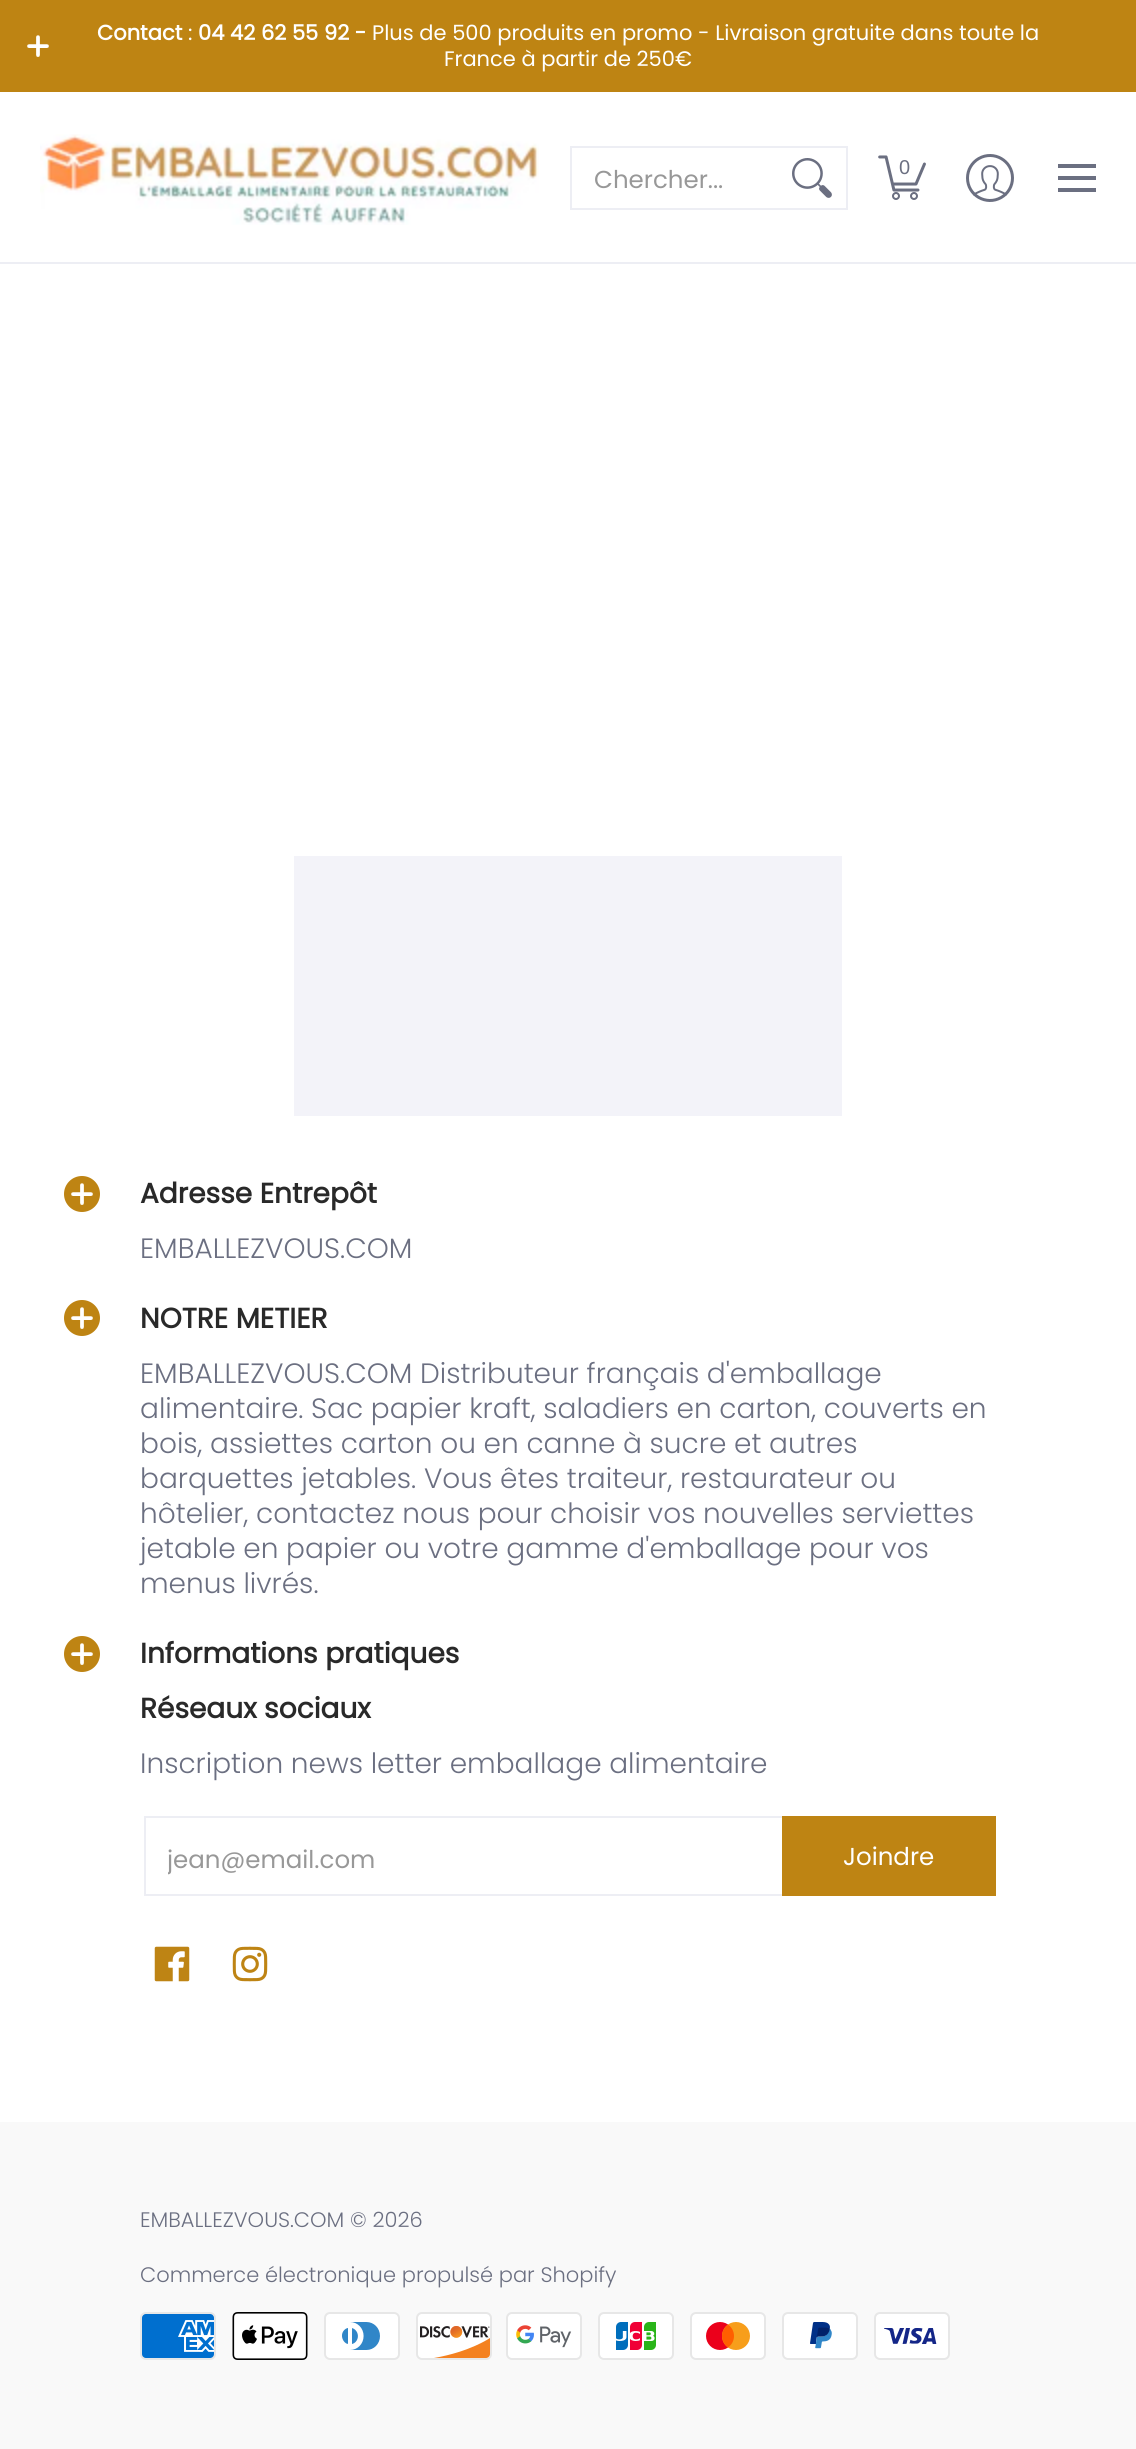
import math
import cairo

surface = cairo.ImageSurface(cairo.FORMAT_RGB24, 1136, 2449)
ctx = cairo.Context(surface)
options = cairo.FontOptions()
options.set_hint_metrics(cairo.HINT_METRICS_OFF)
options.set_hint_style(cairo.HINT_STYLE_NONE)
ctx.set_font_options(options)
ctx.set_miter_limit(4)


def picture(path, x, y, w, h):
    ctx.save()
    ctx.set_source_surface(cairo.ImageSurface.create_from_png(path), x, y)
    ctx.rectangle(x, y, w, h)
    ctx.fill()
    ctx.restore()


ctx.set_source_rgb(1, 1, 1)
ctx.paint()
ctx.set_source_rgb(0.745, 0.518, 0.078)
ctx.rectangle(0, 0, 1136, 92)
ctx.fill()
picture("img1.png", 27, 35, 22, 22)
ctx.select_font_face("Poppins", cairo.FONT_SLANT_NORMAL, cairo.FONT_WEIGHT_BOLD)
ctx.set_font_size(21)
ctx.set_source_rgb(1, 1, 1)
ctx.move_to(97, 40)
ctx.show_text("Contact")
ctx.select_font_face("Poppins")
ctx.move_to(188, 40)
ctx.show_text(":")
ctx.select_font_face("Poppins", cairo.FONT_SLANT_NORMAL, cairo.FONT_WEIGHT_BOLD)
ctx.move_to(198, 40)
ctx.show_text("04 42 62 55 92 -")
ctx.select_font_face("Poppins")
ctx.move_to(372, 40)
ctx.show_text("Plus de 500 produits en promo - Livraison gratuite dans toute la")
ctx.move_to(444, 66)
ctx.show_text("France à partir de 250€")
ctx.set_source_rgb(0.929, 0.933, 0.957)
ctx.rectangle(0, 262, 1136, 2)
ctx.fill()
picture("img2.png", 40, 134, 499, 91)
ctx.rectangle(571, 147, 276, 62)
ctx.stroke()
ctx.set_font_size(24.5)
ctx.set_source_rgb(0.596, 0.596, 0.596)
ctx.move_to(594, 188)
ctx.show_text("Chercher...")
picture("img3.png", 792, 158, 40, 40)
picture("img4.png", 878, 155, 48, 45)
ctx.select_font_face("Liberation Sans")
ctx.set_font_size(20)
ctx.set_source_rgb(0.42, 0.435, 0.506)
ctx.move_to(899, 174)
ctx.show_text("0")
picture("img5.png", 966, 154, 48, 48)
ctx.rectangle(1058, 164, 38, 4)
ctx.fill()
ctx.rectangle(1058, 188, 38, 4)
ctx.fill()
ctx.rectangle(1058, 176, 38, 4)
ctx.fill()
ctx.set_source_rgb(0.953, 0.953, 0.973)
ctx.rectangle(294, 856, 548, 260)
ctx.fill()
ctx.set_source_rgb(0.745, 0.518, 0.078)
ctx.arc(82, 1194, 18, 0, 2 * math.pi)
ctx.fill()
picture("img1.png", 71, 1183, 22, 22)
ctx.select_font_face("Poppins", cairo.FONT_SLANT_NORMAL, cairo.FONT_WEIGHT_BOLD)
ctx.set_font_size(28)
ctx.set_source_rgb(0.161, 0.161, 0.161)
ctx.move_to(140, 1203)
ctx.show_text("Adresse Entrepôt")
ctx.select_font_face("Poppins Light")
ctx.set_source_rgb(0.42, 0.435, 0.506)
ctx.move_to(140, 1258)
ctx.show_text("EMBALLEZVOUS.COM")
ctx.set_source_rgb(0.745, 0.518, 0.078)
ctx.new_path()
ctx.arc(82, 1318, 18, 0, 2 * math.pi)
ctx.fill()
picture("img1.png", 71, 1307, 22, 22)
ctx.select_font_face("Poppins", cairo.FONT_SLANT_NORMAL, cairo.FONT_WEIGHT_BOLD)
ctx.set_source_rgb(0.161, 0.161, 0.161)
ctx.move_to(140, 1328)
ctx.show_text("NOTRE METIER")
ctx.select_font_face("Poppins Light")
ctx.set_source_rgb(0.42, 0.435, 0.506)
ctx.move_to(140, 1383)
ctx.show_text("EMBALLEZVOUS.COM Distributeur français d'emballage")
ctx.move_to(140, 1418)
ctx.show_text("alimentaire. Sac papier kraft, saladiers en carton, couverts en")
ctx.move_to(140, 1453)
ctx.show_text("bois, assiettes carton ou en canne à sucre et autres")
ctx.move_to(140, 1488)
ctx.show_text("barquettes jetables. Vous êtes traiteur, restaurateur ou")
ctx.move_to(140, 1523)
ctx.show_text("hôtelier, contactez nous pour choisir vos nouvelles serviettes")
ctx.move_to(140, 1558)
ctx.show_text("jetable en papier ou votre gamme d'emballage pour vos")
ctx.move_to(140, 1593)
ctx.show_text("menus livrés.")
ctx.set_source_rgb(0.745, 0.518, 0.078)
ctx.new_path()
ctx.arc(82, 1654, 18, 0, 2 * math.pi)
ctx.fill()
picture("img1.png", 71, 1643, 22, 22)
ctx.select_font_face("Poppins", cairo.FONT_SLANT_NORMAL, cairo.FONT_WEIGHT_BOLD)
ctx.set_source_rgb(0.161, 0.161, 0.161)
ctx.move_to(140, 1663)
ctx.show_text("Informations pratiques")
ctx.move_to(140, 1718)
ctx.show_text("Réseaux sociaux")
ctx.select_font_face("Poppins Light")
ctx.set_source_rgb(0.42, 0.435, 0.506)
ctx.move_to(140, 1773)
ctx.show_text("Inscription news letter emballage alimentaire")
ctx.rectangle(145, 1817, 640, 78)
ctx.set_source_rgb(0.929, 0.933, 0.957)
ctx.stroke()
ctx.save()
ctx.rectangle(168, 1842, 596, 36)
ctx.clip()
ctx.select_font_face("Poppins")
ctx.set_font_size(24.5)
ctx.set_source_rgb(0.596, 0.596, 0.596)
ctx.move_to(167, 1868)
ctx.show_text("jean@email.com")
ctx.restore()
ctx.set_source_rgb(0.745, 0.518, 0.078)
ctx.rectangle(782, 1816, 214, 80)
ctx.fill()
ctx.select_font_face("Poppins")
ctx.set_font_size(24.5)
ctx.set_source_rgb(1, 1, 1)
ctx.move_to(843, 1865)
ctx.show_text("Joindre")
picture("img6.png", 154, 1946, 36, 36)
picture("img7.png", 232, 1946, 36, 36)
ctx.set_source_rgb(0.973, 0.973, 0.973)
ctx.rectangle(0, 2122, 1136, 327)
ctx.fill()
ctx.select_font_face("Poppins Light")
ctx.set_font_size(21)
ctx.set_source_rgb(0.42, 0.435, 0.506)
ctx.move_to(140, 2227)
ctx.show_text("EMBALLEZVOUS.COM © 2026")
ctx.move_to(140, 2282)
ctx.show_text("Commerce électronique propulsé par Shopify")
picture("img8.png", 140, 2312, 76, 48)
picture("img9.png", 232, 2312, 76, 48)
picture("img10.png", 324, 2312, 76, 48)
picture("img11.png", 416, 2312, 76, 48)
picture("img12.png", 506, 2312, 76, 48)
picture("img13.png", 598, 2312, 76, 48)
picture("img14.png", 690, 2312, 76, 48)
picture("img15.png", 782, 2312, 76, 48)
picture("img16.png", 874, 2312, 76, 48)
surface.write_to_png("page.png")
